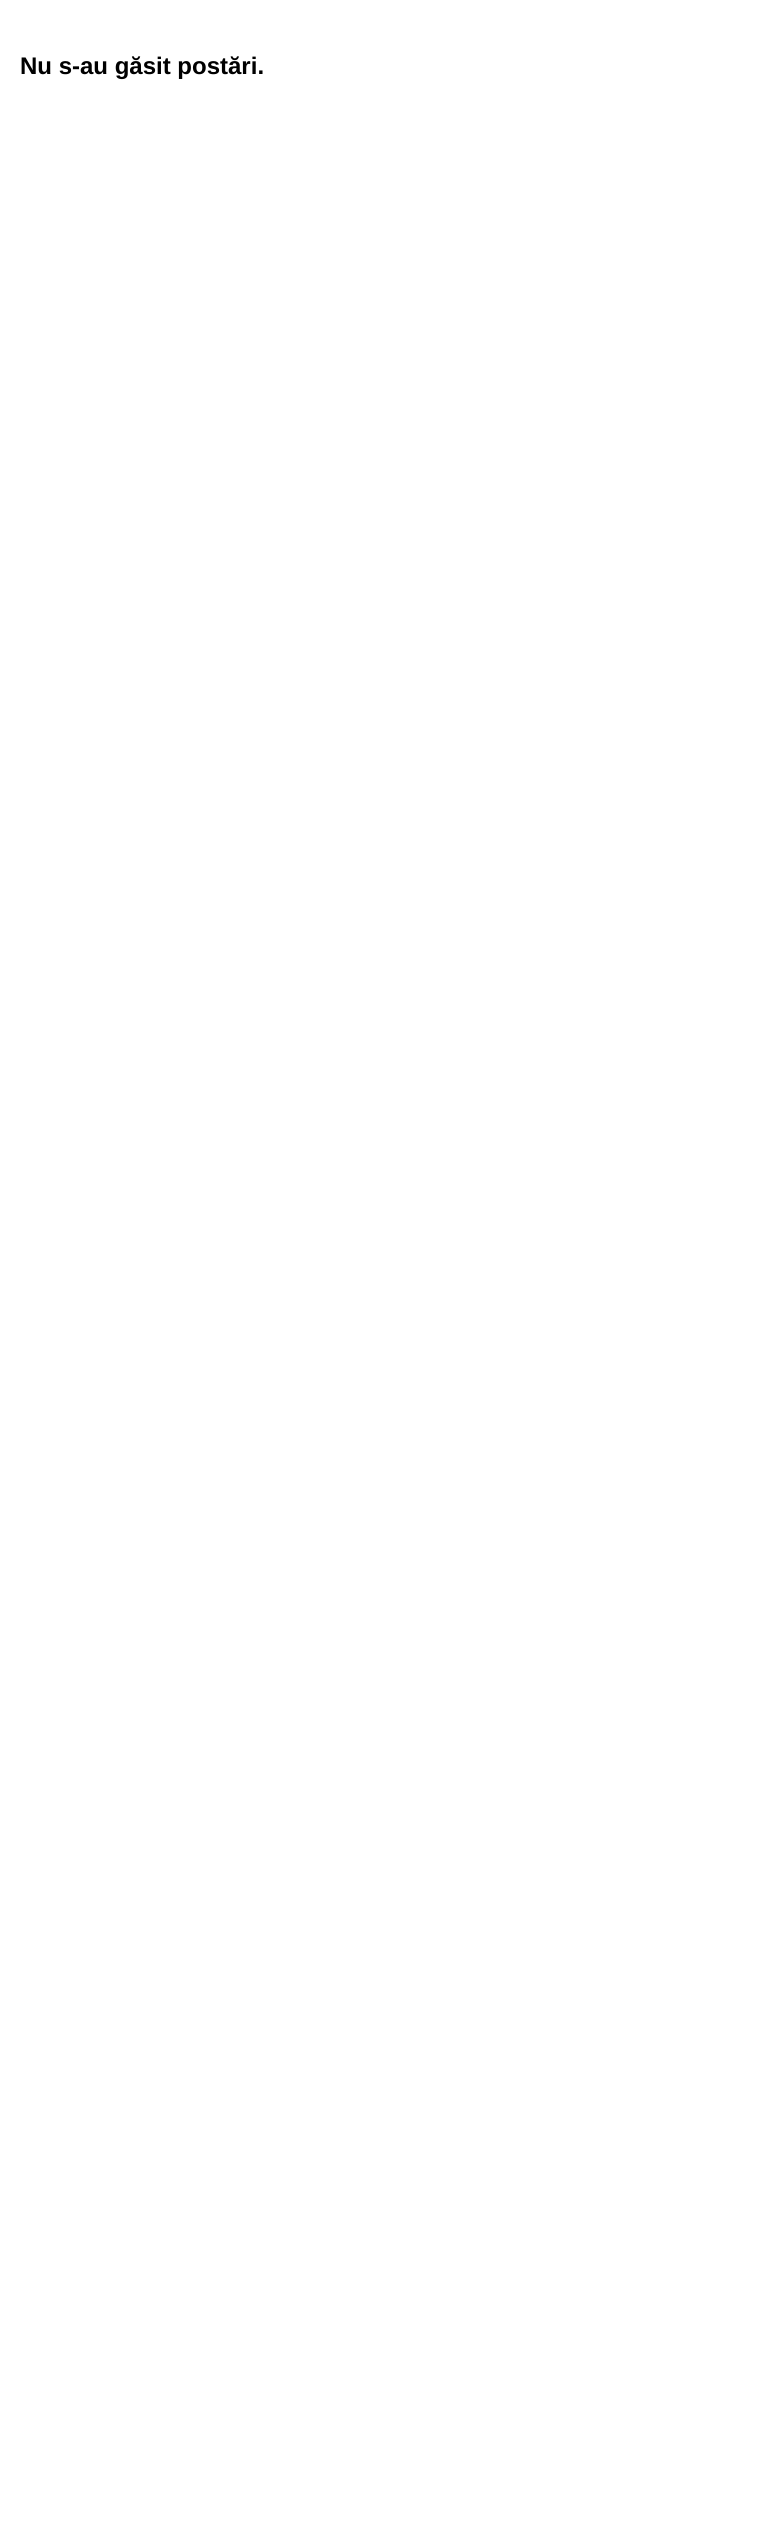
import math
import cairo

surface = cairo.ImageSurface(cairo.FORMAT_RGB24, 757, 2533)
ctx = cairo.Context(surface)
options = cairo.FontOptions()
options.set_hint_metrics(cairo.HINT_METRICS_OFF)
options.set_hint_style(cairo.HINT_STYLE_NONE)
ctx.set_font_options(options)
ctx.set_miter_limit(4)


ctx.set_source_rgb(1, 1, 1)
ctx.paint()
ctx.select_font_face("Liberation Sans", cairo.FONT_SLANT_NORMAL, cairo.FONT_WEIGHT_BOLD)
ctx.set_font_size(24)
ctx.set_source_rgb(0, 0, 0)
ctx.move_to(20, 74)
ctx.show_text("Nu s-au găsit postări.")
surface.write_to_png("page.png")
